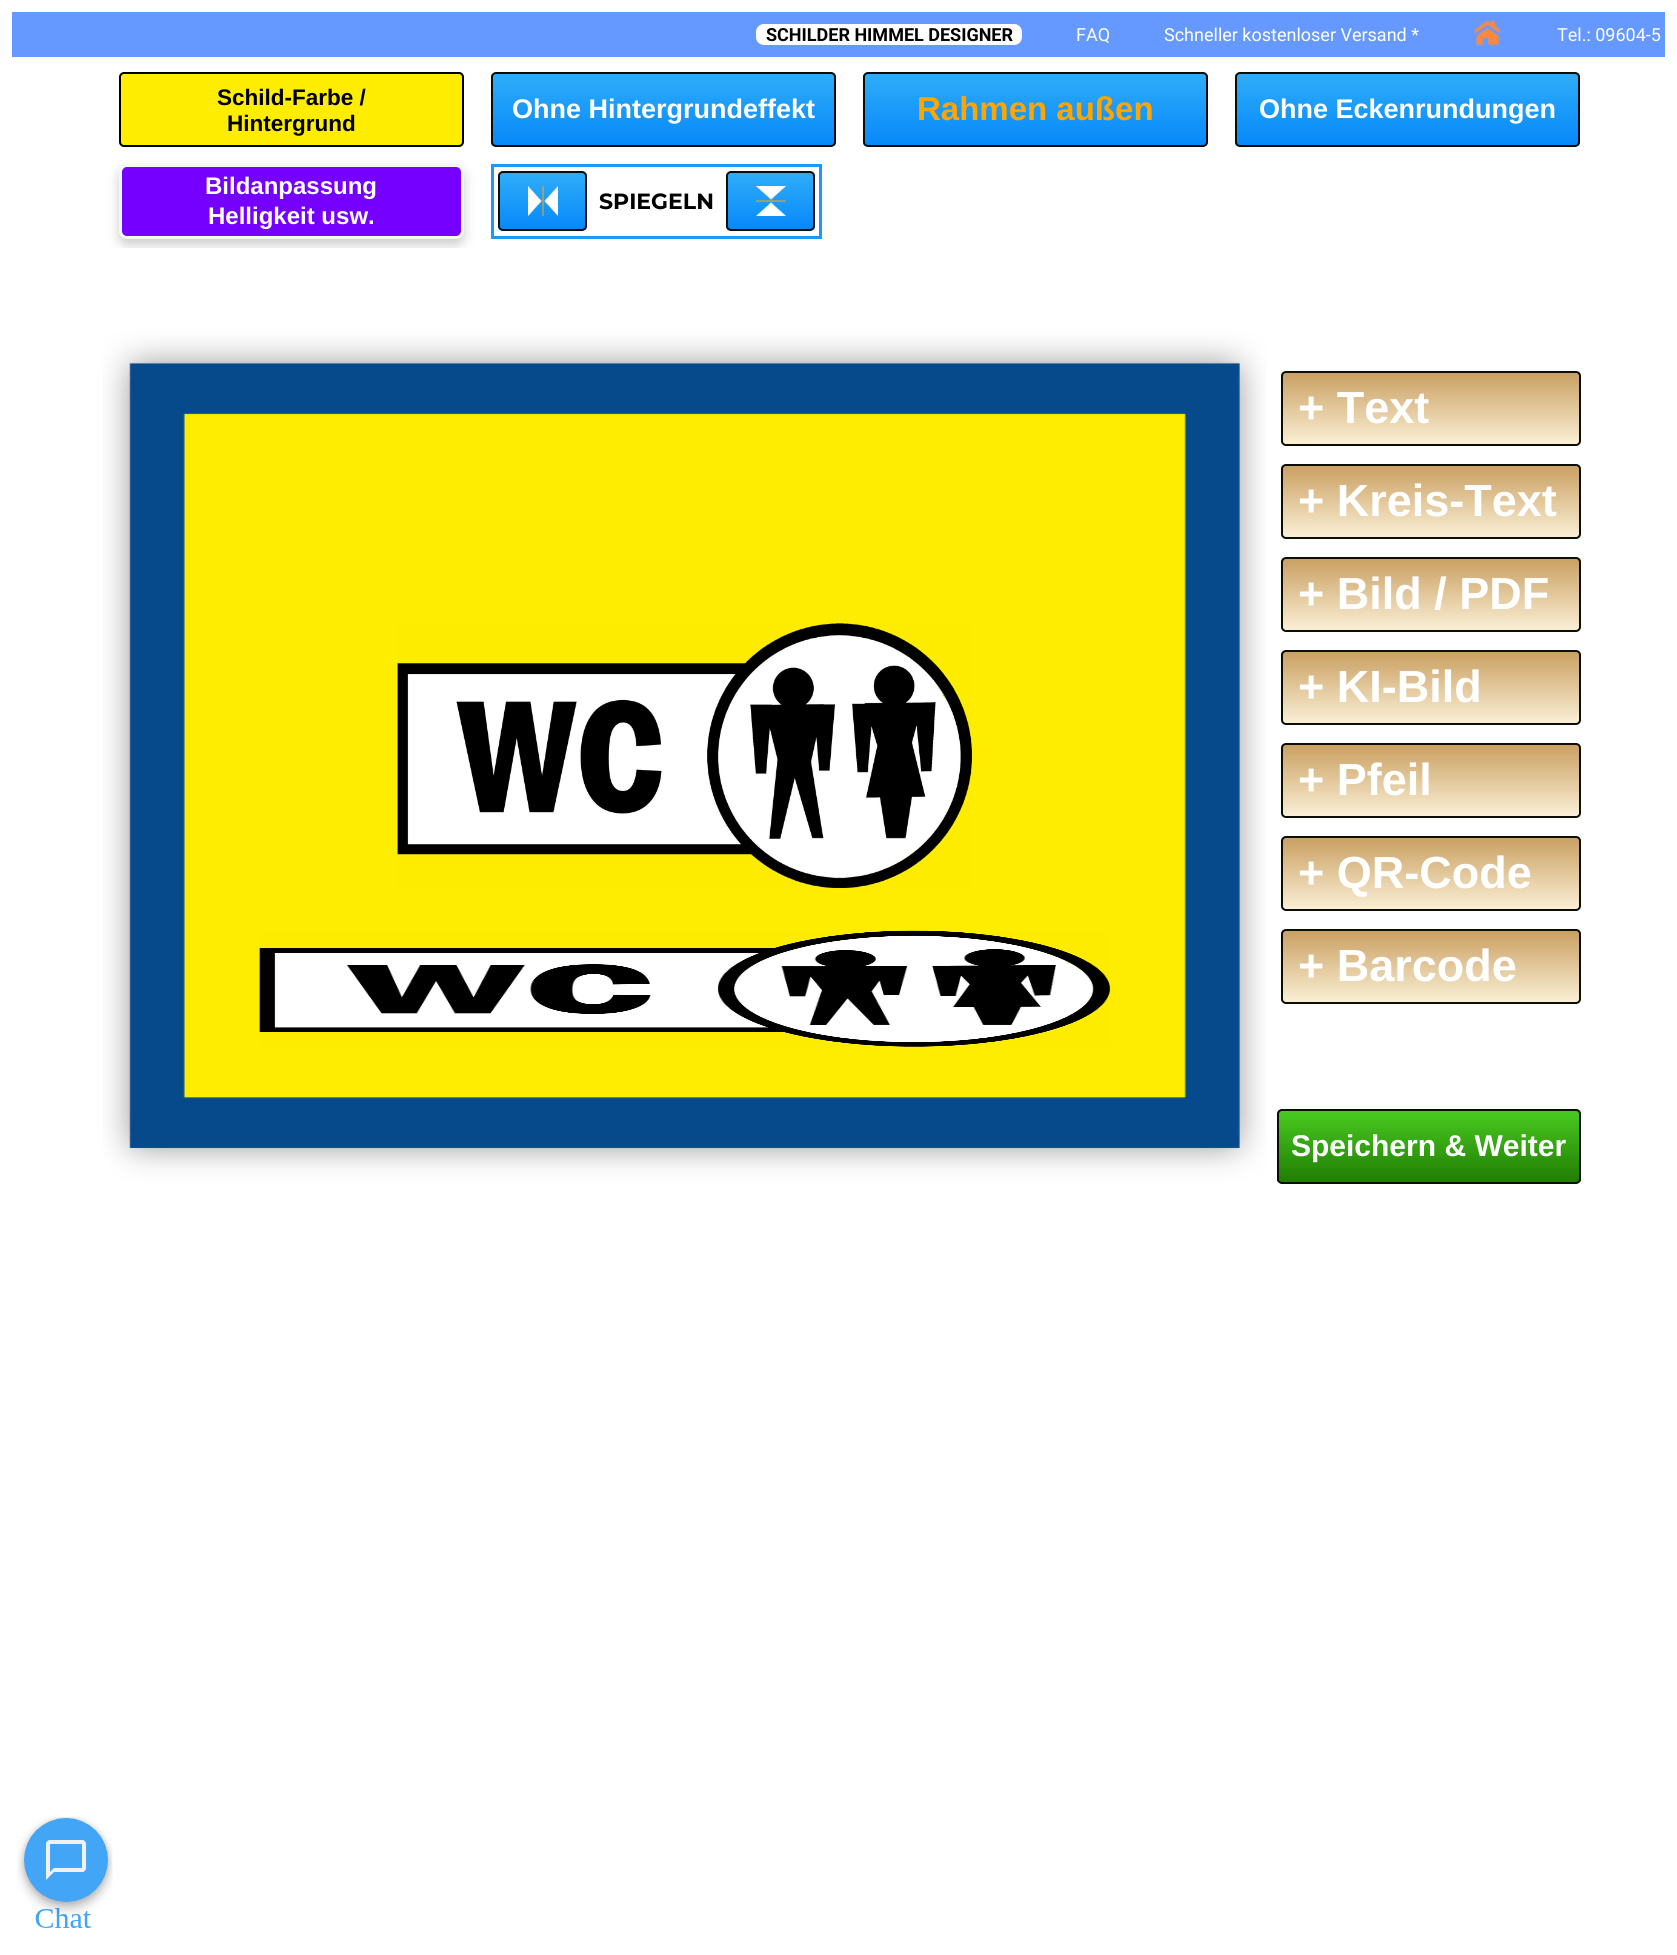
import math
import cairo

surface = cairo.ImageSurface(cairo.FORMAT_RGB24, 1677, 1955)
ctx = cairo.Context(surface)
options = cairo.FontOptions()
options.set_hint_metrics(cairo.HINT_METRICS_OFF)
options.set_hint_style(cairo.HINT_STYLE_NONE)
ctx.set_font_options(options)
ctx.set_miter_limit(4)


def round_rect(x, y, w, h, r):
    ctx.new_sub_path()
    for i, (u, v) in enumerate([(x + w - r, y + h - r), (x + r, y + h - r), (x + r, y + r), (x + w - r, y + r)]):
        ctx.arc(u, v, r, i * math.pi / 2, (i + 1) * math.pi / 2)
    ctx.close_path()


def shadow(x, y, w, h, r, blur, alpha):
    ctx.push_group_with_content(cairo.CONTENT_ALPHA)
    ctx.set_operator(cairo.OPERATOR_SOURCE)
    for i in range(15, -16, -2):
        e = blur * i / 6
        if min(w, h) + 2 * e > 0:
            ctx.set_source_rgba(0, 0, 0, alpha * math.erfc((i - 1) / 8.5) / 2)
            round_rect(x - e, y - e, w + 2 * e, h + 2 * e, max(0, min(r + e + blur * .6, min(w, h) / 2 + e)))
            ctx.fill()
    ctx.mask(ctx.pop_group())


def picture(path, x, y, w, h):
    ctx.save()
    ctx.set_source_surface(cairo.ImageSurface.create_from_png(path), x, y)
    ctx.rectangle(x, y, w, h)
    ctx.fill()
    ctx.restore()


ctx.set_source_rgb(1, 1, 1)
ctx.paint()
ctx.set_source_rgb(0.4, 0.6, 1)
ctx.rectangle(12, 12, 1653, 45)
ctx.fill()
ctx.set_source_rgb(1, 1, 1)
round_rect(756, 24, 266, 21, 8)
ctx.fill()
ctx.select_font_face("Roboto", cairo.FONT_SLANT_NORMAL, cairo.FONT_WEIGHT_BOLD)
ctx.set_font_size(18)
ctx.set_source_rgb(0, 0, 0)
ctx.move_to(766, 41)
ctx.show_text("SCHILDER HIMMEL DESIGNER")
ctx.select_font_face("Roboto")
ctx.set_source_rgb(1, 1, 1)
ctx.move_to(1076, 41)
ctx.show_text("FAQ")
ctx.move_to(1164, 41)
ctx.show_text("Schneller kostenloser Versand *")
picture("img1.png", 1474, 19, 27, 27)
ctx.move_to(1557, 41)
ctx.show_text("Tel.: 09604-5")
ctx.set_source_rgb(1, 0.929, 0)
round_rect(120, 73, 343, 73, 4)
ctx.fill_preserve()
ctx.set_source_rgb(0, 0, 0)
ctx.stroke()
ctx.select_font_face("Liberation Sans", cairo.FONT_SLANT_NORMAL, cairo.FONT_WEIGHT_BOLD)
ctx.set_font_size(22.5)
ctx.move_to(217, 105)
ctx.show_text("Schild-Farbe /")
ctx.move_to(227, 131)
ctx.show_text("Hintergrund")
ctx.save()
round_rect(491, 72, 345, 75, 5)
ctx.clip()
gradient = cairo.LinearGradient(663, 73, 663, 146)
gradient.add_color_stop_rgba(0.05, 0.176, 0.671, 0.976, 1)
gradient.add_color_stop_rgba(1, 0.024, 0.533, 0.98, 1)
ctx.set_source(gradient)
ctx.rectangle(491, 74, 345, 72)
ctx.fill()
ctx.restore()
round_rect(492, 73, 343, 73, 4)
ctx.set_source_rgb(0.043, 0.055, 0.027)
ctx.stroke()
ctx.set_font_size(27)
ctx.set_source_rgb(1, 1, 1)
ctx.move_to(512, 118)
ctx.show_text("Ohne Hintergrundeffekt")
ctx.save()
round_rect(863, 72, 345, 75, 5)
ctx.clip()
gradient = cairo.LinearGradient(1035, 73, 1035, 146)
gradient.add_color_stop_rgba(0.05, 0.176, 0.671, 0.976, 1)
gradient.add_color_stop_rgba(1, 0.024, 0.533, 0.98, 1)
ctx.set_source(gradient)
ctx.rectangle(863, 74, 345, 72)
ctx.fill()
ctx.restore()
round_rect(864, 73, 343, 73, 4)
ctx.set_source_rgb(0.043, 0.055, 0.027)
ctx.stroke()
ctx.set_font_size(33)
ctx.set_source_rgb(1, 0.647, 0)
ctx.move_to(917, 120)
ctx.show_text("Rahmen außen")
ctx.save()
round_rect(1235, 72, 345, 75, 5)
ctx.clip()
gradient = cairo.LinearGradient(1407, 73, 1407, 146)
gradient.add_color_stop_rgba(0.05, 0.176, 0.671, 0.976, 1)
gradient.add_color_stop_rgba(1, 0.024, 0.533, 0.98, 1)
ctx.set_source(gradient)
ctx.rectangle(1235, 74, 345, 72)
ctx.fill()
ctx.restore()
round_rect(1236, 73, 343, 73, 4)
ctx.set_source_rgb(0.043, 0.055, 0.027)
ctx.stroke()
ctx.set_font_size(27)
ctx.set_source_rgb(1, 1, 1)
ctx.move_to(1259, 118)
ctx.show_text("Ohne Eckenrundungen")
ctx.set_source_rgb(0, 0, 0)
shadow(119, 170, 345, 75, 8, 6, 0.2)
ctx.set_source_rgb(0.463, 0, 1)
round_rect(120.5, 165.5, 342, 72, 6.5)
ctx.fill_preserve()
ctx.set_source_rgb(0.945, 0.98, 0.933)
ctx.set_line_width(3)
ctx.stroke()
ctx.set_font_size(24)
ctx.set_source_rgb(1, 1, 1)
ctx.move_to(205, 194)
ctx.show_text("Bildanpassung")
ctx.move_to(208, 224)
ctx.show_text("Helligkeit usw.")
ctx.rectangle(492.5, 165.5, 328, 72)
ctx.set_source_rgb(0.098, 0.6, 0.976)
ctx.stroke()
ctx.save()
round_rect(498, 171, 89, 60, 5)
ctx.clip()
gradient = cairo.LinearGradient(542, 173, 542, 230)
gradient.add_color_stop_rgba(0.05, 0.176, 0.671, 0.976, 1)
gradient.add_color_stop_rgba(1, 0.024, 0.533, 0.98, 1)
ctx.set_source(gradient)
ctx.rectangle(498, 173, 89, 57)
ctx.fill()
ctx.restore()
round_rect(499, 172, 87, 58, 4)
ctx.set_source_rgb(0.043, 0.055, 0.027)
ctx.set_line_width(2)
ctx.stroke()
picture("img2.png", 528, 186, 30, 30)
ctx.select_font_face("Montserrat", cairo.FONT_SLANT_NORMAL, cairo.FONT_WEIGHT_BOLD)
ctx.set_font_size(22)
ctx.set_source_rgb(0, 0, 0)
ctx.move_to(599, 209)
ctx.show_text("SPIEGELN")
ctx.save()
round_rect(726, 171, 89, 60, 5)
ctx.clip()
gradient = cairo.LinearGradient(770, 173, 770, 230)
gradient.add_color_stop_rgba(0.05, 0.176, 0.671, 0.976, 1)
gradient.add_color_stop_rgba(1, 0.024, 0.533, 0.98, 1)
ctx.set_source(gradient)
ctx.rectangle(726, 173, 89, 57)
ctx.fill()
ctx.restore()
round_rect(727, 172, 87, 58, 4)
ctx.set_source_rgb(0.043, 0.055, 0.027)
ctx.stroke()
picture("img3.png", 756, 186, 30, 30)
ctx.set_source_rgb(1, 1, 1)
ctx.rectangle(115, 248, 353, 7)
ctx.fill()
picture("img4.png", 103, 249, 1163, 1013)
ctx.save()
round_rect(1281, 371, 300, 75, 5)
ctx.clip()
gradient = cairo.LinearGradient(1431, 372, 1431, 444)
gradient.add_color_stop_rgba(0.05, 0.8, 0.639, 0.4, 1)
gradient.add_color_stop_rgba(1, 0.98, 0.937, 0.835, 1)
ctx.set_source(gradient)
ctx.rectangle(1281, 372, 300, 72)
ctx.fill()
ctx.restore()
round_rect(1282, 372, 298, 73, 4)
ctx.set_source_rgb(0.043, 0.055, 0.027)
ctx.stroke()
ctx.select_font_face("Liberation Sans", cairo.FONT_SLANT_NORMAL, cairo.FONT_WEIGHT_BOLD)
ctx.set_font_size(45)
ctx.set_source_rgb(1, 1, 1)
ctx.move_to(1298, 423)
ctx.show_text("+ Text")
ctx.save()
round_rect(1281, 464, 300, 75, 5)
ctx.clip()
gradient = cairo.LinearGradient(1431, 465, 1431, 537)
gradient.add_color_stop_rgba(0.05, 0.8, 0.639, 0.4, 1)
gradient.add_color_stop_rgba(1, 0.98, 0.937, 0.835, 1)
ctx.set_source(gradient)
ctx.rectangle(1281, 465, 300, 72)
ctx.fill()
ctx.restore()
round_rect(1282, 465, 298, 73, 4)
ctx.set_source_rgb(0.043, 0.055, 0.027)
ctx.stroke()
ctx.set_source_rgb(1, 1, 1)
ctx.move_to(1298, 516)
ctx.show_text("+ Kreis-Text")
ctx.save()
round_rect(1281, 557, 300, 75, 5)
ctx.clip()
gradient = cairo.LinearGradient(1431, 558, 1431, 630)
gradient.add_color_stop_rgba(0.05, 0.8, 0.639, 0.4, 1)
gradient.add_color_stop_rgba(1, 0.98, 0.937, 0.835, 1)
ctx.set_source(gradient)
ctx.rectangle(1281, 558, 300, 72)
ctx.fill()
ctx.restore()
round_rect(1282, 558, 298, 73, 4)
ctx.set_source_rgb(0.043, 0.055, 0.027)
ctx.stroke()
ctx.set_source_rgb(1, 1, 1)
ctx.move_to(1298, 609)
ctx.show_text("+ Bild / PDF")
ctx.save()
round_rect(1281, 650, 300, 75, 5)
ctx.clip()
gradient = cairo.LinearGradient(1431, 651, 1431, 723)
gradient.add_color_stop_rgba(0.05, 0.8, 0.639, 0.4, 1)
gradient.add_color_stop_rgba(1, 0.98, 0.937, 0.835, 1)
ctx.set_source(gradient)
ctx.rectangle(1281, 651, 300, 72)
ctx.fill()
ctx.restore()
round_rect(1282, 651, 298, 73, 4)
ctx.set_source_rgb(0.043, 0.055, 0.027)
ctx.stroke()
ctx.set_source_rgb(1, 1, 1)
ctx.move_to(1298, 702)
ctx.show_text("+ KI-Bild")
ctx.save()
round_rect(1281, 743, 300, 75, 5)
ctx.clip()
gradient = cairo.LinearGradient(1431, 744, 1431, 816)
gradient.add_color_stop_rgba(0.05, 0.8, 0.639, 0.4, 1)
gradient.add_color_stop_rgba(1, 0.98, 0.937, 0.835, 1)
ctx.set_source(gradient)
ctx.rectangle(1281, 744, 300, 72)
ctx.fill()
ctx.restore()
round_rect(1282, 744, 298, 73, 4)
ctx.set_source_rgb(0.043, 0.055, 0.027)
ctx.stroke()
ctx.set_source_rgb(1, 1, 1)
ctx.move_to(1298, 795)
ctx.show_text("+ Pfeil")
ctx.save()
round_rect(1281, 836, 300, 75, 5)
ctx.clip()
gradient = cairo.LinearGradient(1431, 837, 1431, 909)
gradient.add_color_stop_rgba(0.05, 0.8, 0.639, 0.4, 1)
gradient.add_color_stop_rgba(1, 0.98, 0.937, 0.835, 1)
ctx.set_source(gradient)
ctx.rectangle(1281, 837, 300, 72)
ctx.fill()
ctx.restore()
round_rect(1282, 837, 298, 73, 4)
ctx.set_source_rgb(0.043, 0.055, 0.027)
ctx.stroke()
ctx.set_source_rgb(1, 1, 1)
ctx.move_to(1298, 888)
ctx.show_text("+ QR-Code")
ctx.save()
round_rect(1281, 929, 300, 75, 5)
ctx.clip()
gradient = cairo.LinearGradient(1431, 930, 1431, 1002)
gradient.add_color_stop_rgba(0.05, 0.8, 0.639, 0.4, 1)
gradient.add_color_stop_rgba(1, 0.98, 0.937, 0.835, 1)
ctx.set_source(gradient)
ctx.rectangle(1281, 930, 300, 72)
ctx.fill()
ctx.restore()
round_rect(1282, 930, 298, 73, 4)
ctx.set_source_rgb(0.043, 0.055, 0.027)
ctx.stroke()
ctx.set_source_rgb(1, 1, 1)
ctx.move_to(1298, 981)
ctx.show_text("+ Barcode")
ctx.save()
round_rect(1277, 1109, 304, 75, 5)
ctx.clip()
gradient = cairo.LinearGradient(1429, 1110, 1429, 1182)
gradient.add_color_stop_rgba(0.05, 0.278, 0.78, 0.122, 1)
gradient.add_color_stop_rgba(1, 0.129, 0.49, 0.016, 1)
ctx.set_source(gradient)
ctx.rectangle(1277, 1110, 304, 72)
ctx.fill()
ctx.restore()
round_rect(1278, 1110, 302, 73, 4)
ctx.set_source_rgb(0.043, 0.055, 0.027)
ctx.stroke()
ctx.set_font_size(30)
ctx.set_source_rgb(1, 1, 1)
ctx.move_to(1291, 1156)
ctx.show_text("Speichern & Weiter")
picture("img5.png", 17, 1817, 96, 111)
surface.write_to_png("page.png")
